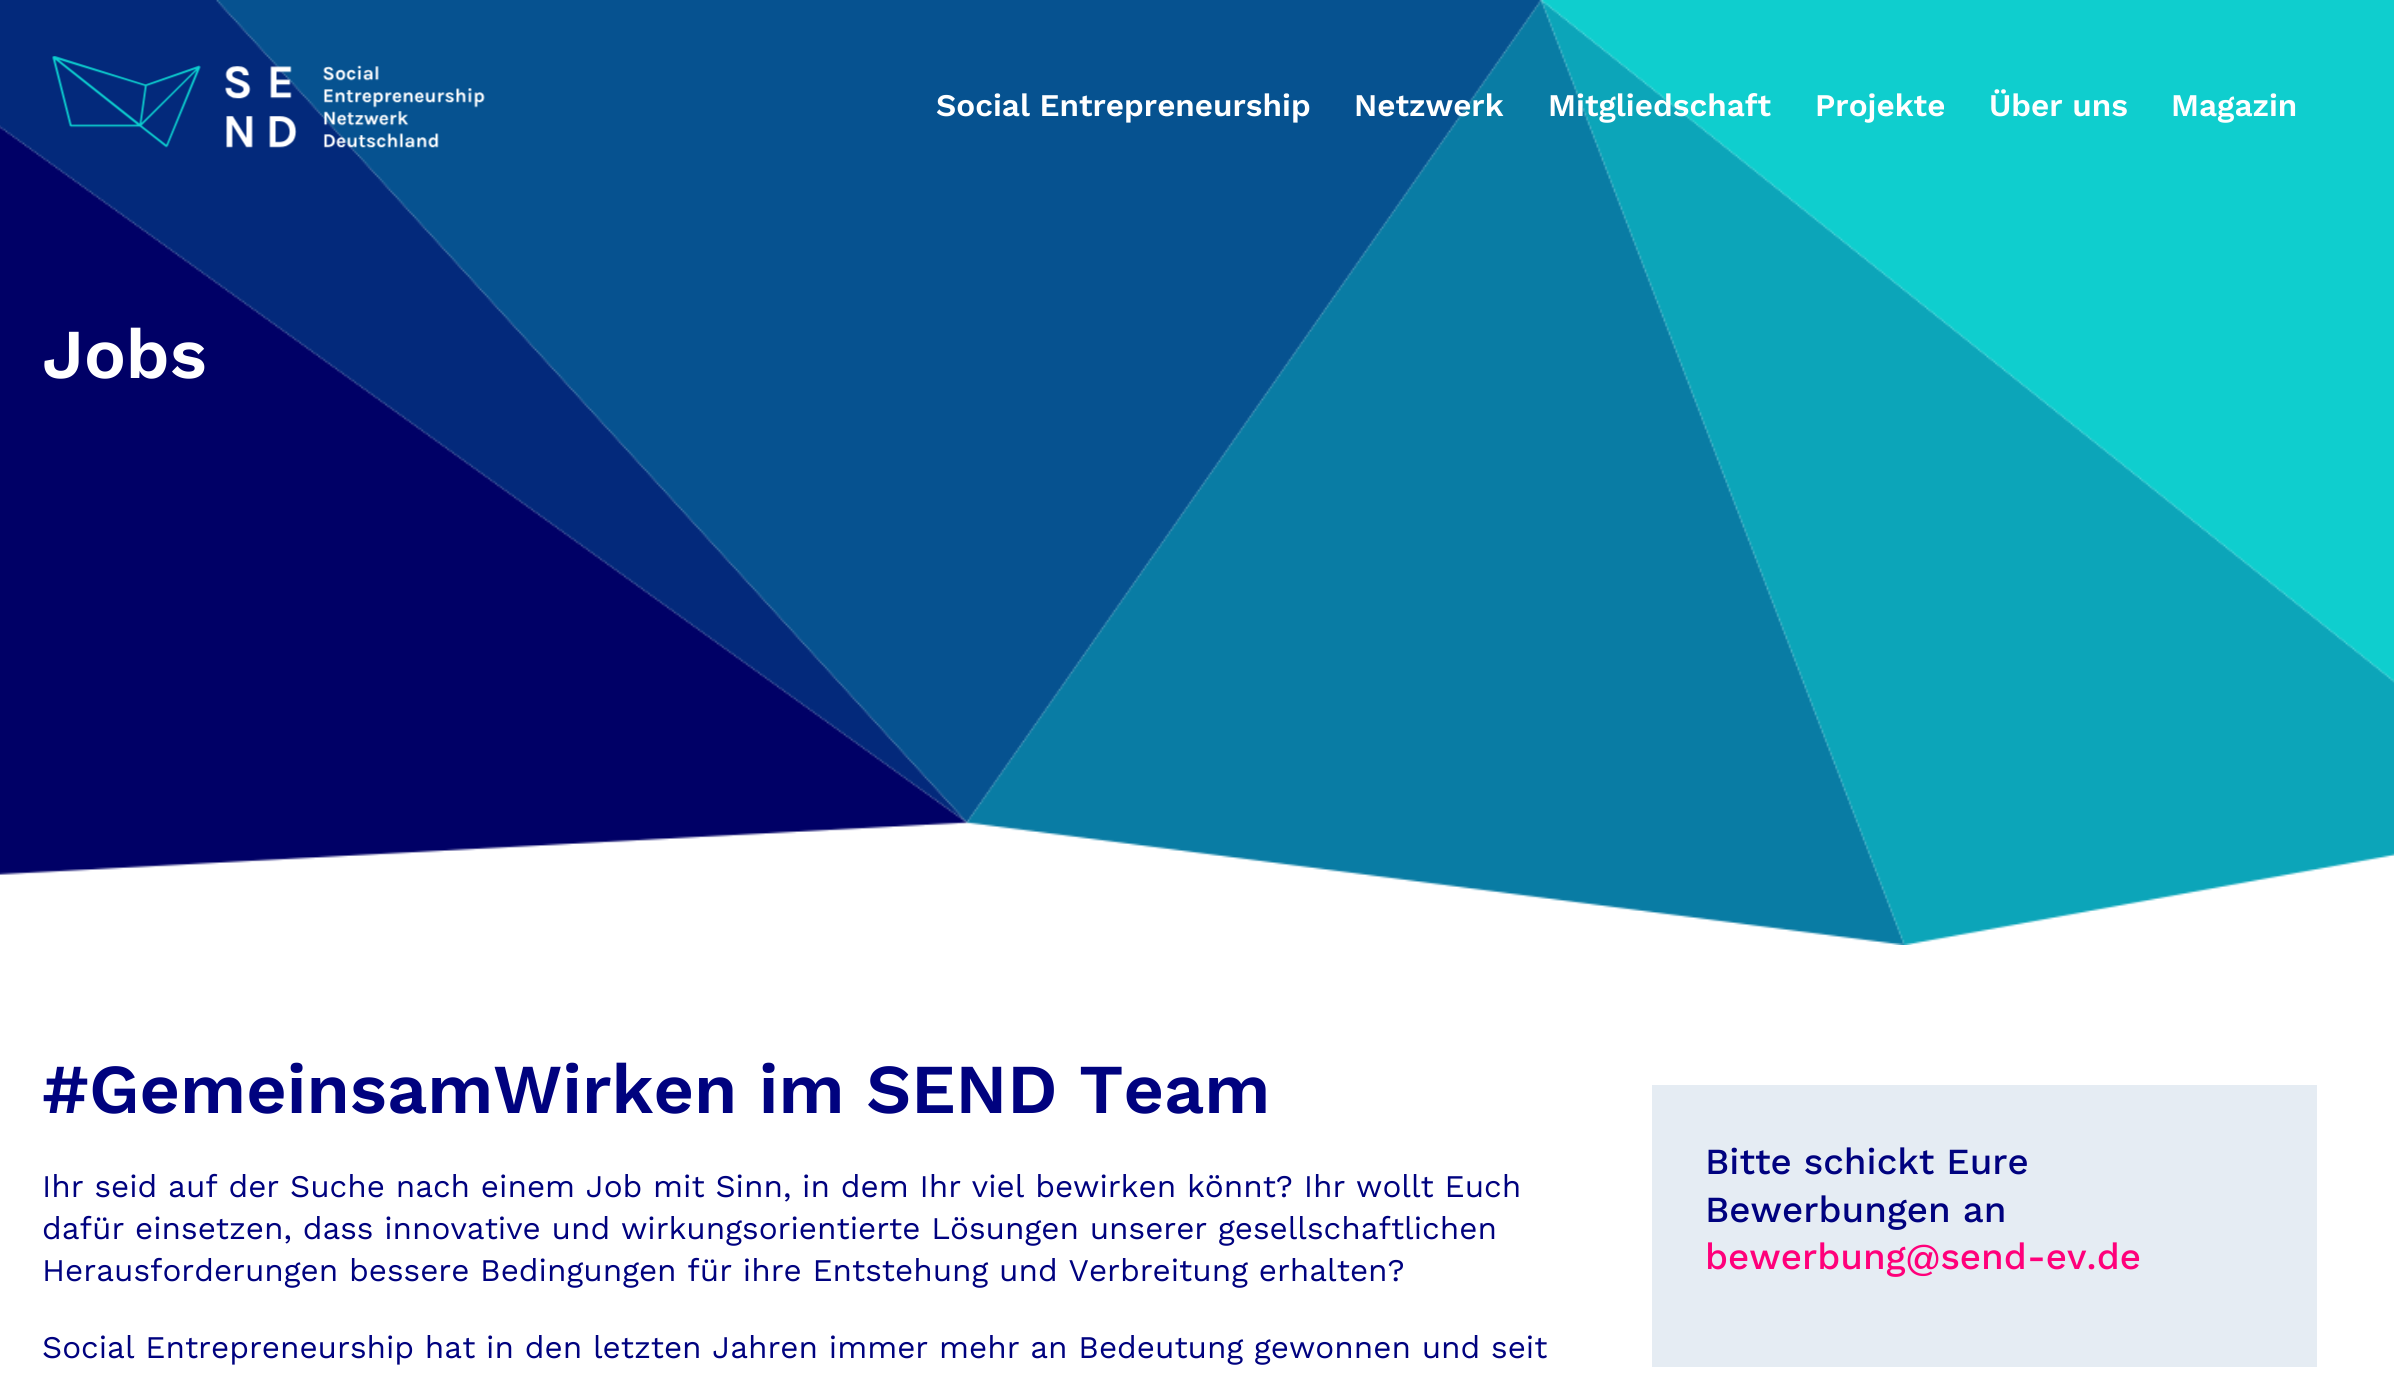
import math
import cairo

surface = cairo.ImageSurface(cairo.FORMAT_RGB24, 2394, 1381)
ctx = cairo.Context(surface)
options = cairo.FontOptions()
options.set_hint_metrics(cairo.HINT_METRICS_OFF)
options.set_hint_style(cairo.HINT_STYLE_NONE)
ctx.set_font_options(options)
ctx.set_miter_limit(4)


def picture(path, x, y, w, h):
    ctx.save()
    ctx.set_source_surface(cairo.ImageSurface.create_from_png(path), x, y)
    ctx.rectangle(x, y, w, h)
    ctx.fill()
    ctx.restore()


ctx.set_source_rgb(1, 1, 1)
ctx.paint()
picture("img2.png", 0, 0, 2394, 945)
picture("img1.png", 52, 56, 433, 92)
ctx.select_font_face("Work Sans SemiBold")
ctx.set_font_size(31.5)
ctx.set_source_rgb(1, 1, 1)
ctx.move_to(936, 116)
ctx.show_text("Social Entrepreneurship")
ctx.move_to(1354, 116)
ctx.show_text("Netzwerk")
ctx.move_to(1548, 116)
ctx.show_text("Mitgliedschaft")
ctx.move_to(1815, 116)
ctx.show_text("Projekte")
ctx.move_to(1989, 116)
ctx.show_text("Über uns")
ctx.move_to(2171, 116)
ctx.show_text("Magazin")
ctx.set_font_size(70)
ctx.move_to(42, 378)
ctx.show_text("Jobs")
ctx.set_source_rgb(0, 0.008, 0.498)
ctx.move_to(42, 1113)
ctx.show_text("#GemeinsamWirken im SEND Team")
ctx.select_font_face("Work Sans")
ctx.set_font_size(31.5)
ctx.move_to(42, 1197)
ctx.show_text("Ihr seid auf der Suche nach einem Job mit Sinn, in dem Ihr viel bewirken könnt? Ihr wollt Euch")
ctx.move_to(42, 1239)
ctx.show_text("dafür einsetzen, dass innovative und wirkungsorientierte Lösungen unserer gesellschaftlichen")
ctx.move_to(42, 1281)
ctx.show_text("Herausforderungen bessere Bedingungen für ihre Entstehung und Verbreitung erhalten?")
ctx.move_to(42, 1358)
ctx.show_text("Social Entrepreneurship hat in den letzten Jahren immer mehr an Bedeutung gewonnen und seit")
ctx.set_source_rgb(0.898, 0.925, 0.953)
ctx.rectangle(1652, 1085, 665, 282)
ctx.fill()
ctx.select_font_face("Work Sans Medium")
ctx.set_font_size(36.75)
ctx.set_source_rgb(0, 0.008, 0.498)
ctx.move_to(1705, 1174)
ctx.show_text("Bitte schickt Eure")
ctx.move_to(1705, 1222)
ctx.show_text("Bewerbungen an")
ctx.set_source_rgb(1, 0, 0.478)
ctx.move_to(1705, 1269)
ctx.show_text("bewerbung@send-ev.de")
surface.write_to_png("page.png")
